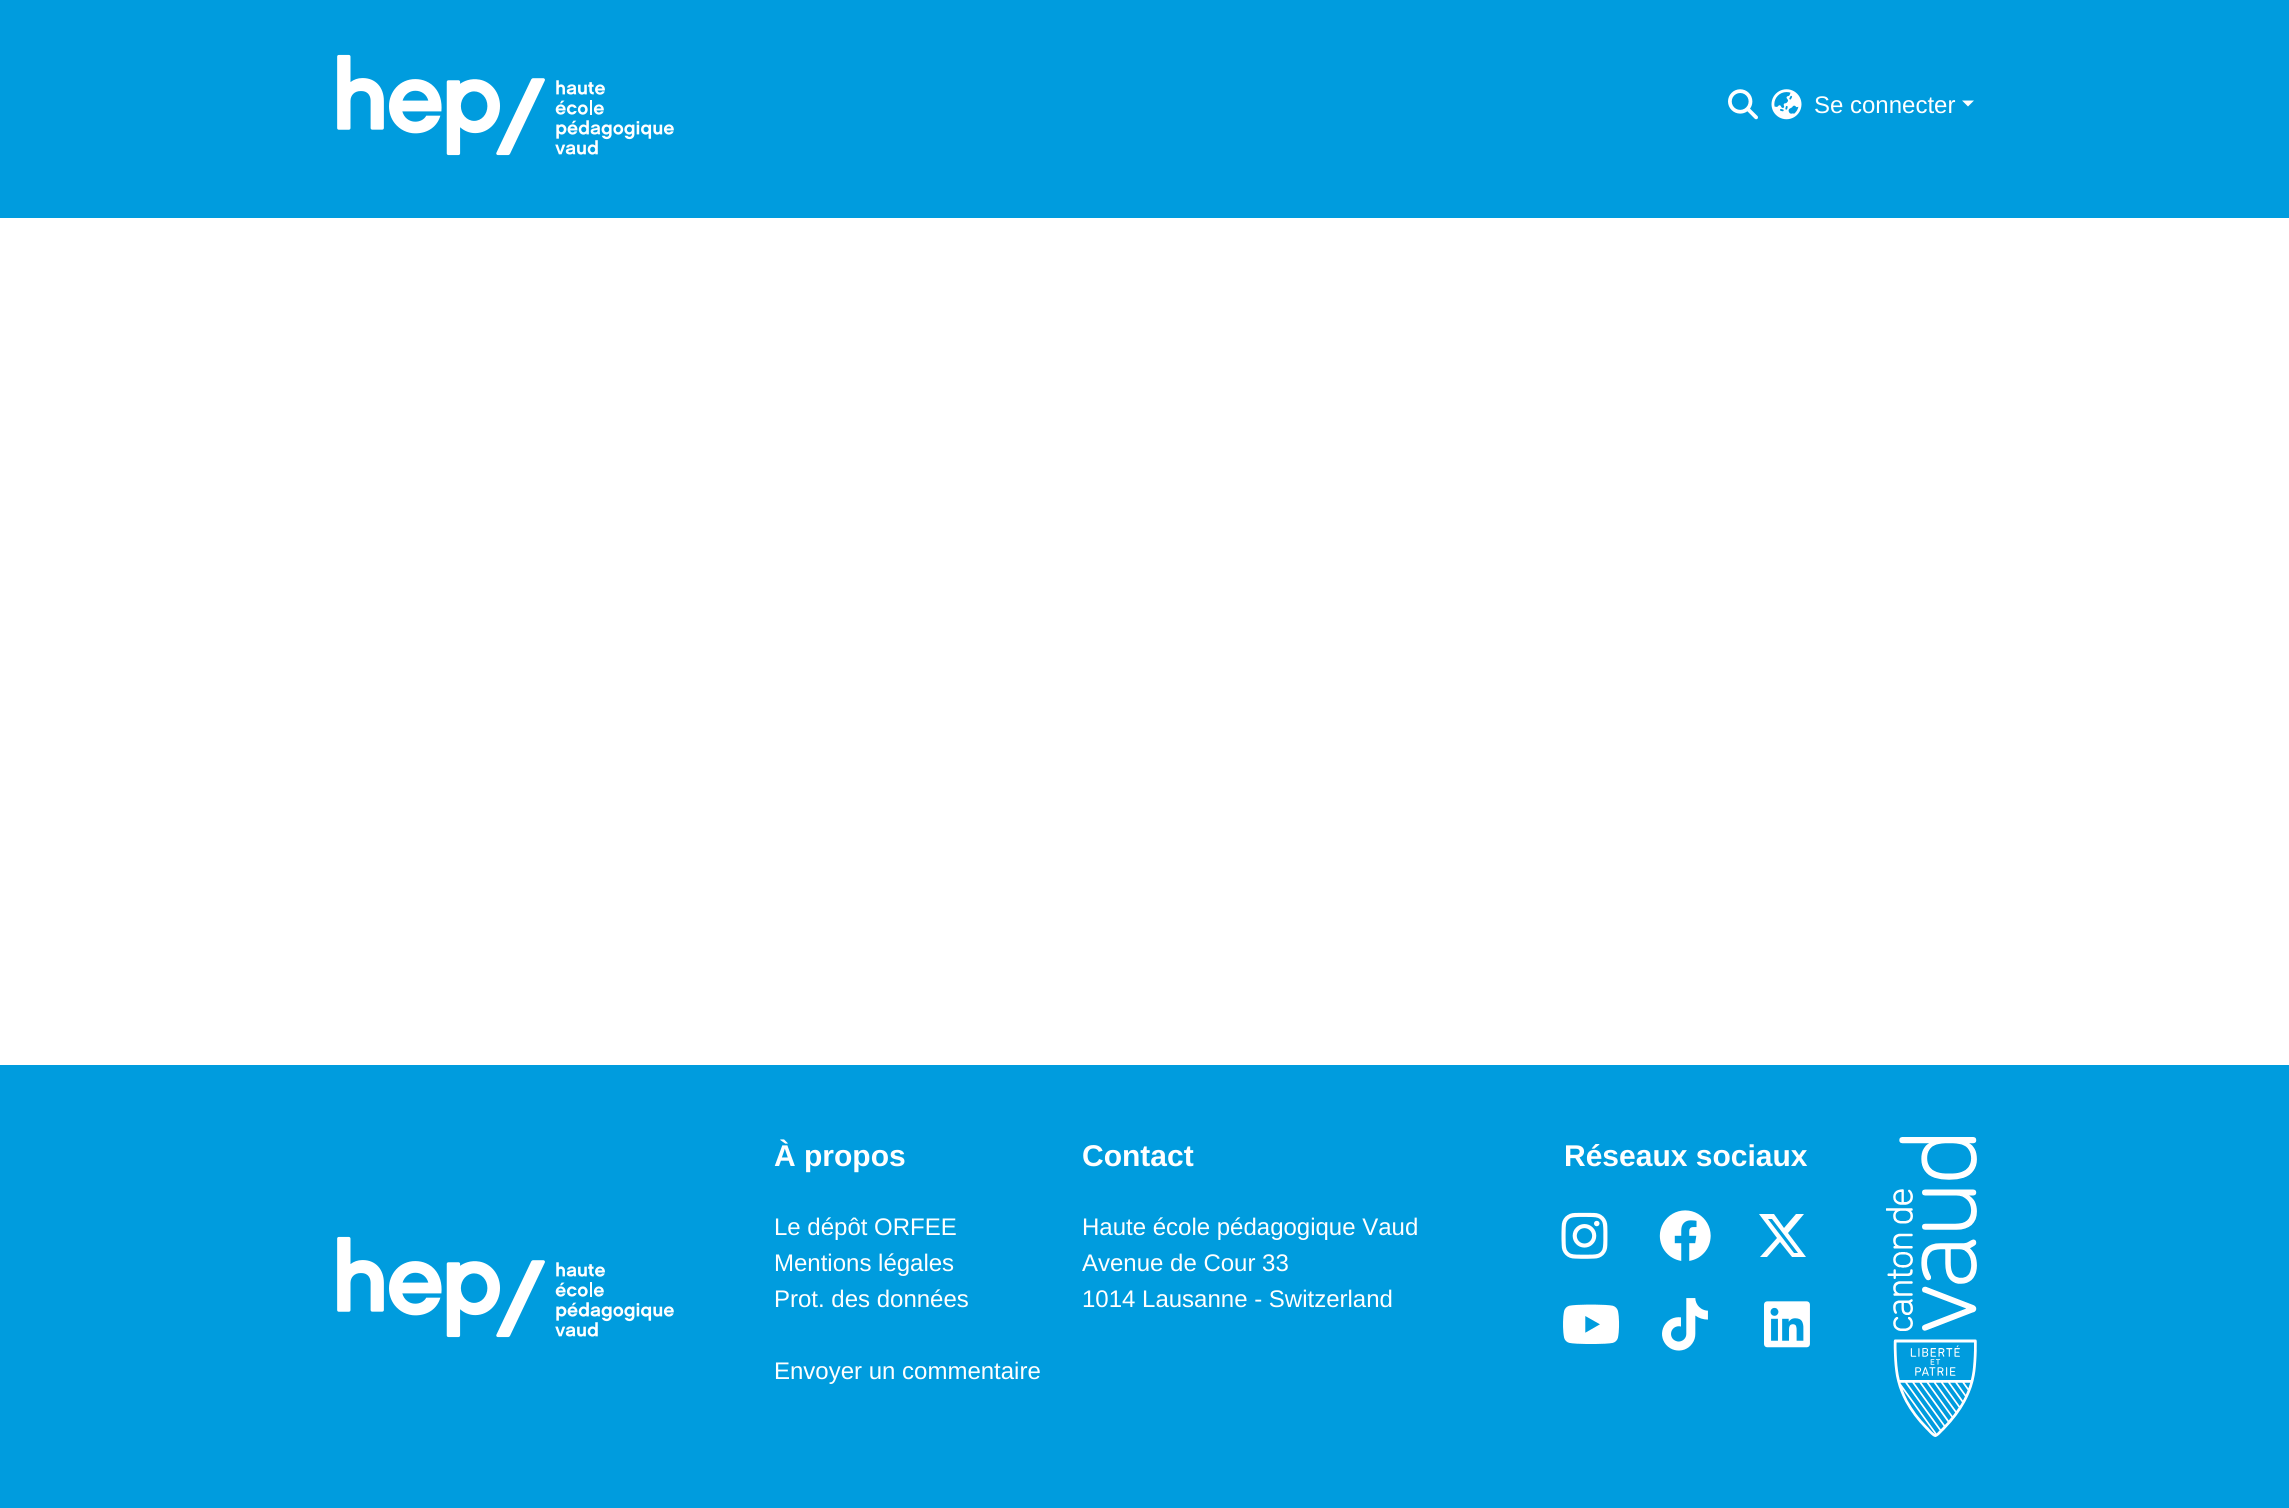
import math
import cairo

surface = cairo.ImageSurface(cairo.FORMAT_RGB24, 2289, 1508)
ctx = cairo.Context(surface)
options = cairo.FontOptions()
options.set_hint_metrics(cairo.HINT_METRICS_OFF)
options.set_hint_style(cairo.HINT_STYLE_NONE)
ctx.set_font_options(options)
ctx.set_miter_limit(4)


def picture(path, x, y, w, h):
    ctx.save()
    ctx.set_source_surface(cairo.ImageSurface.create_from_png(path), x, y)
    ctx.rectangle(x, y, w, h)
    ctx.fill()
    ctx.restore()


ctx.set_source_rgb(1, 1, 1)
ctx.paint()
ctx.set_source_rgb(0, 0.612, 0.871)
ctx.rectangle(0, 0, 2289, 218)
ctx.fill()
picture("img1.png", 337, 54, 337, 102)
picture("img2.png", 1728, 89, 30, 31)
picture("img3.png", 1771, 89, 31, 31)
ctx.select_font_face("Liberation Sans")
ctx.set_font_size(24)
ctx.set_source_rgb(1, 1, 1)
ctx.move_to(1814, 113)
ctx.show_text("Se connecter")
ctx.new_path()
ctx.move_to(1962, 100.5)
ctx.line_to(1974, 100.5)
ctx.line_to(1968, 106.5)
ctx.close_path()
ctx.fill()
ctx.set_source_rgb(0, 0.612, 0.871)
ctx.rectangle(0, 1065, 2289, 443)
ctx.fill()
picture("img1.png", 337, 1236, 337, 102)
ctx.select_font_face("Liberation Sans", cairo.FONT_SLANT_NORMAL, cairo.FONT_WEIGHT_BOLD)
ctx.set_font_size(30)
ctx.set_source_rgb(1, 1, 1)
ctx.move_to(774, 1166)
ctx.show_text("À propos")
ctx.select_font_face("Liberation Sans")
ctx.set_font_size(24)
ctx.move_to(774, 1235)
ctx.show_text("Le dépôt ORFEE")
ctx.move_to(774, 1271)
ctx.show_text("Mentions légales")
ctx.move_to(774, 1307)
ctx.show_text("Prot. des données")
ctx.move_to(774, 1379)
ctx.show_text("Envoyer un commentaire")
ctx.select_font_face("Liberation Sans", cairo.FONT_SLANT_NORMAL, cairo.FONT_WEIGHT_BOLD)
ctx.set_font_size(30)
ctx.move_to(1082, 1166)
ctx.show_text("Contact")
ctx.select_font_face("Liberation Sans")
ctx.set_font_size(24)
ctx.move_to(1082, 1235)
ctx.show_text("Haute école pédagogique Vaud")
ctx.move_to(1082, 1271)
ctx.show_text("Avenue de Cour 33")
ctx.move_to(1082, 1307)
ctx.show_text("1014 Lausanne - Switzerland")
ctx.select_font_face("Liberation Sans", cairo.FONT_SLANT_NORMAL, cairo.FONT_WEIGHT_BOLD)
ctx.set_font_size(30)
ctx.move_to(1564, 1166)
ctx.show_text("Réseaux sociaux")
picture("img4.png", 1561, 1212, 47, 47)
picture("img5.png", 1659, 1210, 52, 51)
ctx.new_path()
ctx.move_to(1796, 1214)
ctx.line_to(1804, 1214)
ctx.line_to(1788, 1233)
ctx.line_to(1806, 1257)
ctx.line_to(1792, 1257)
ctx.line_to(1780, 1242)
ctx.line_to(1767, 1257)
ctx.line_to(1760, 1257)
ctx.line_to(1777, 1238)
ctx.line_to(1759, 1214)
ctx.line_to(1774, 1214)
ctx.line_to(1784, 1228)
ctx.close_path()
ctx.move_to(1794, 1253)
ctx.line_to(1798, 1253)
ctx.line_to(1772, 1219)
ctx.line_to(1768, 1219)
ctx.close_path()
ctx.fill()
picture("img6.png", 1563, 1304, 57, 40)
picture("img7.png", 1662, 1298, 46, 53)
picture("img8.png", 1764, 1301, 46, 47)
picture("img9.png", 1886, 1137, 91, 300)
surface.write_to_png("page.png")
